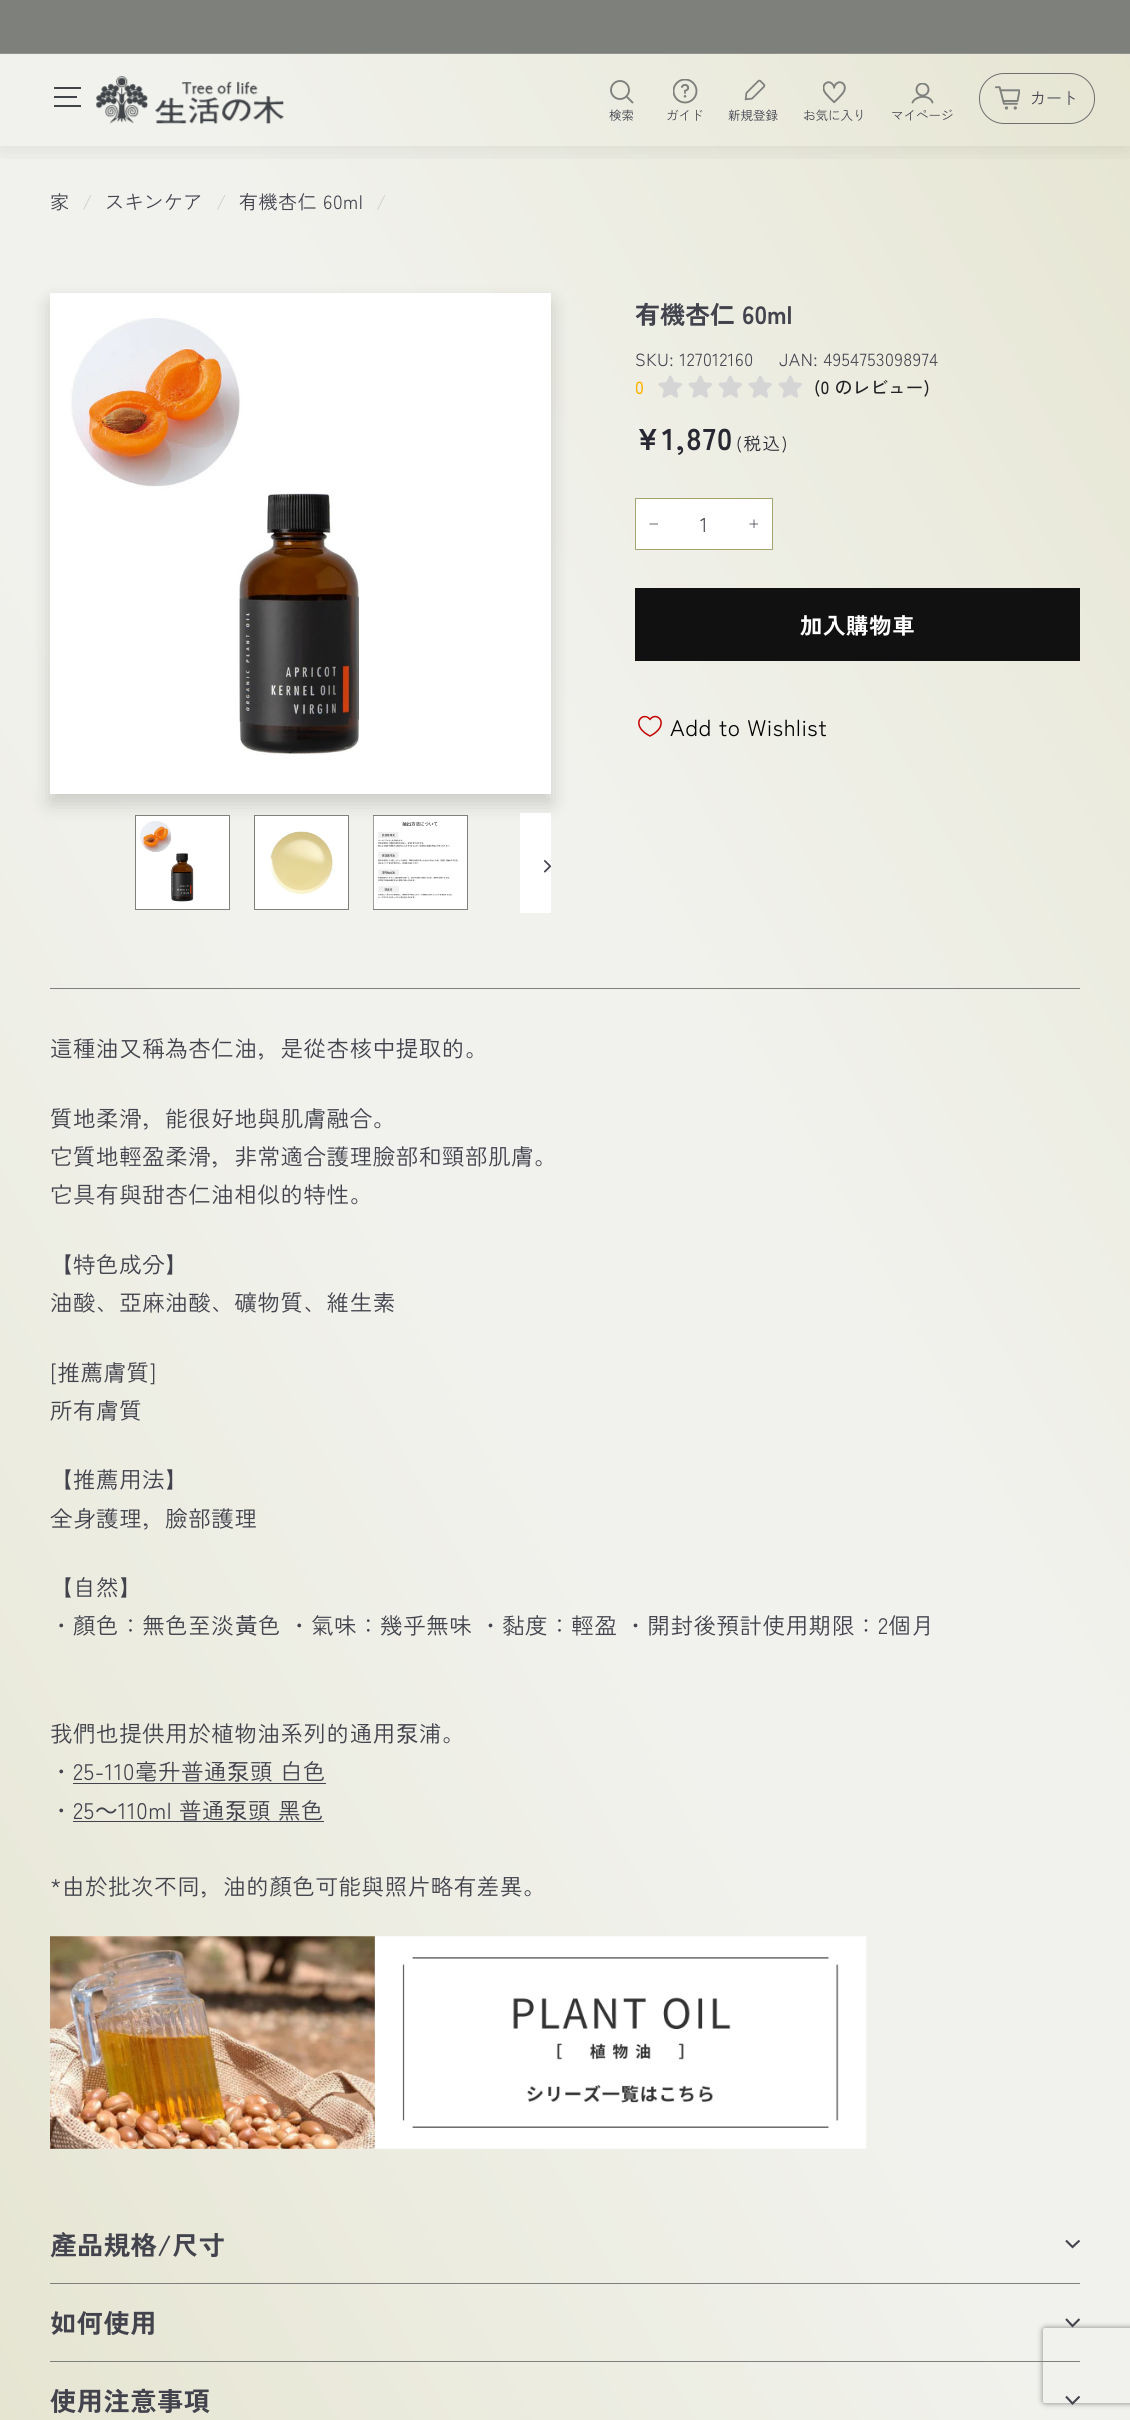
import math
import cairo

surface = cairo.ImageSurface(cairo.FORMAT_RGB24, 1130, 2420)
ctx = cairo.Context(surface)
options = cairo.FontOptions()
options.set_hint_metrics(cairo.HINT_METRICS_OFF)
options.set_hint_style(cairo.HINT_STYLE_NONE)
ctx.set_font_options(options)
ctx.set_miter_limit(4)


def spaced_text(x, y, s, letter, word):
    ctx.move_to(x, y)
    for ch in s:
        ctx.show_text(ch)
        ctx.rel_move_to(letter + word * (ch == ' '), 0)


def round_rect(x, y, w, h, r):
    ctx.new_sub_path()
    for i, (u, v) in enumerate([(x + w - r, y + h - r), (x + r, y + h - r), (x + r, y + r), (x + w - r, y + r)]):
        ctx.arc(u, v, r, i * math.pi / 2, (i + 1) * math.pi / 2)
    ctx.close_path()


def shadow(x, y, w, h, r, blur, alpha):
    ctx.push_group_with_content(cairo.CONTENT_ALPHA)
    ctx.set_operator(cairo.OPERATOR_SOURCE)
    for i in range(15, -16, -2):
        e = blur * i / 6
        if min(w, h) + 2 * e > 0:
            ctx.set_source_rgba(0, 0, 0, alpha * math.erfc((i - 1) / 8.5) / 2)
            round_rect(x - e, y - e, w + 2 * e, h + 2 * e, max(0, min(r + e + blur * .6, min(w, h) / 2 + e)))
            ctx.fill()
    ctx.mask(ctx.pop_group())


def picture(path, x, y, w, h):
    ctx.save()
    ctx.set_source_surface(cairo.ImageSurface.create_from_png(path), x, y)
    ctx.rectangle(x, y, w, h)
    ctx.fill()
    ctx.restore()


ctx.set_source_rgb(1, 1, 1)
ctx.paint()
gradient = cairo.LinearGradient(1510, 686, -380, 1734)
gradient.add_color_stop_rgba(0, 0.902, 0.898, 0.824, 1)
gradient.add_color_stop_rgba(0.4, 0.945, 0.949, 0.929, 1)
gradient.add_color_stop_rgba(0.57, 0.945, 0.949, 0.929, 1)
gradient.add_color_stop_rgba(1, 0.902, 0.898, 0.824, 1)
ctx.set_source(gradient)
ctx.rectangle(0, 54, 1130, 2366)
ctx.fill()
ctx.save()
ctx.rectangle(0, 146, 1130, 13)
ctx.clip()
ctx.set_source_rgb(0, 0, 0)
shadow(0, 54, 1130, 92, 0, 15.5, 0.1)
ctx.restore()
ctx.set_source_rgb(0.494, 0.502, 0.486)
ctx.rectangle(0, 0, 1130, 53)
ctx.fill()
ctx.set_source_rgb(0.569, 0.576, 0.565)
ctx.rectangle(0, 53, 1130, 1)
ctx.fill()
ctx.set_source_rgb(0.255, 0.267, 0.282)
ctx.rectangle(54, 87, 27, 2)
ctx.fill()
ctx.rectangle(54, 96, 23, 2)
ctx.fill()
ctx.rectangle(54, 105, 27, 2)
ctx.fill()
picture("img1.png", 96, 76, 188, 49)
round_rect(979.5, 73.5, 115, 50, 24.5)
ctx.set_source_rgb(0.439, 0.439, 0.439)
ctx.set_line_width(1)
ctx.stroke()
picture("img2.png", 995, 86, 25, 24)
ctx.select_font_face("Zen Kaku Gothic Antique")
ctx.set_font_size(16)
ctx.set_source_rgb(0.259, 0.263, 0.302)
ctx.move_to(1030, 104)
ctx.show_text("カート")
ctx.new_path()
ctx.arc(620, 90, 9, 0, 2 * math.pi)
ctx.set_source_rgb(0.494, 0.502, 0.486)
ctx.set_line_width(1.9)
ctx.stroke()
ctx.new_path()
ctx.move_to(627, 97)
ctx.line_to(632.5, 102.5)
ctx.set_line_cap(cairo.LINE_CAP_ROUND)
ctx.stroke()
ctx.set_font_size(12.5)
ctx.set_source_rgb(0.259, 0.263, 0.302)
ctx.move_to(609, 120)
ctx.show_text("検索")
picture("img3.png", 673, 79, 25, 25)
ctx.move_to(666, 120)
ctx.show_text("ガイド")
picture("img4.png", 744, 79, 22, 22)
ctx.move_to(728, 120)
ctx.show_text("新規登録")
picture("img5.png", 823, 81, 23, 23)
ctx.move_to(803, 120)
ctx.show_text("お気に入り")
ctx.save()
ctx.rectangle(911, 83, 23, 21)
ctx.clip()
ctx.arc(922.5, 89.5, 6, 0, 2 * math.pi)
ctx.set_source_rgb(0.494, 0.502, 0.486)
ctx.set_line_cap(cairo.LINE_CAP_BUTT)
ctx.stroke()
ctx.restore()
ctx.new_path()
ctx.move_to(912.5, 102.5)
ctx.curve_to(915.5, 95.5, 930, 94.5, 932.5, 102.5)
ctx.set_source_rgb(0.494, 0.502, 0.486)
ctx.stroke()
ctx.set_source_rgb(0.259, 0.263, 0.302)
ctx.move_to(891, 120)
ctx.show_text("マイページ")
ctx.set_font_size(19)
spaced_text(50, 209, "家", 0.55, 0)
ctx.set_source_rgb(0.808, 0.812, 0.804)
spaced_text(82, 209, "/", 0.55, 0)
ctx.set_source_rgb(0.259, 0.263, 0.302)
spaced_text(105, 209, "スキンケア", 0.55, 0)
ctx.set_source_rgb(0.808, 0.812, 0.804)
spaced_text(216, 209, "/", 0.55, 0)
ctx.set_source_rgb(0.259, 0.263, 0.302)
spaced_text(239, 209, "有機杏仁 60ml", 0.55, 0)
ctx.set_source_rgb(0.808, 0.812, 0.804)
spaced_text(376, 209, "/", 0.55, 0)
ctx.set_source_rgb(0, 0, 0)
shadow(50, 303, 501, 501, 0, 10, 0.16)
ctx.set_source_rgb(1, 1, 1)
ctx.rectangle(50, 293, 501, 501)
ctx.fill()
picture("img6.png", 70, 318, 290, 437)
ctx.rectangle(135.5, 815.5, 94, 94)
ctx.fill_preserve()
ctx.set_source_rgb(0.494, 0.502, 0.486)
ctx.set_line_width(1)
ctx.set_line_cap(cairo.LINE_CAP_BUTT)
ctx.stroke()
picture("img7.png", 140, 821, 54, 81)
ctx.set_source_rgb(1, 1, 1)
ctx.rectangle(254.5, 815.5, 94, 94)
ctx.fill_preserve()
ctx.set_source_rgb(0.494, 0.502, 0.486)
ctx.stroke()
picture("img8.png", 270, 831, 63, 63)
ctx.set_source_rgb(1, 1, 1)
ctx.rectangle(373.5, 815.5, 94, 94)
ctx.fill_preserve()
ctx.set_source_rgb(0.494, 0.502, 0.486)
ctx.stroke()
picture("img9.png", 373, 816, 86, 93)
ctx.set_source_rgb(1, 1, 1)
ctx.rectangle(520, 813, 31, 100)
ctx.fill()
picture("img10.png", 544, 860, 7, 13)
ctx.select_font_face("Zen Kaku Gothic Antique", cairo.FONT_SLANT_NORMAL, cairo.FONT_WEIGHT_BOLD)
ctx.set_font_size(25)
ctx.set_source_rgb(0.259, 0.263, 0.302)
ctx.move_to(635, 324)
ctx.show_text("有機杏仁 60ml")
ctx.select_font_face("Zen Kaku Gothic Antique")
ctx.set_font_size(17.5)
spaced_text(635, 366, "SKU: 127012160", 0.55, 0)
spaced_text(779, 366, "JAN: 4954753098974", 0.55, 0)
ctx.select_font_face("Zen Kaku Gothic Antique Medium")
ctx.set_source_rgb(1, 0.706, 0)
spaced_text(635, 394, "0", 0.55, 0)
picture("img11.png", 658, 375, 24, 23)
picture("img12.png", 688, 375, 24, 23)
picture("img13.png", 718, 375, 24, 23)
picture("img14.png", 748, 375, 24, 23)
picture("img15.png", 778, 375, 24, 23)
ctx.set_source_rgb(0.125, 0.133, 0.137)
spaced_text(814, 394, "(0 のレビュー)", 0.25, 0)
ctx.select_font_face("Zen Kaku Gothic Antique", cairo.FONT_SLANT_NORMAL, cairo.FONT_WEIGHT_BOLD)
ctx.set_font_size(30)
ctx.set_source_rgb(0.153, 0.157, 0.192)
spaced_text(635, 450, "¥1,870", 1.5, 0)
ctx.select_font_face("Zen Kaku Gothic Antique")
ctx.set_font_size(17.5)
spaced_text(736, 450, "(税込)", 1.5, 0)
ctx.set_source_rgb(1, 1, 1)
ctx.rectangle(635.5, 498.5, 137, 51)
ctx.fill_preserve()
ctx.set_source_rgb(0.643, 0.643, 0.443)
ctx.stroke()
ctx.new_path()
ctx.move_to(658, 524)
ctx.line_to(649.5, 524)
ctx.set_source_rgb(0.259, 0.263, 0.302)
ctx.set_line_width(0.8)
ctx.stroke()
ctx.set_font_size(20)
ctx.move_to(700, 532)
ctx.show_text("1")
ctx.new_path()
ctx.move_to(754, 519.5)
ctx.line_to(754, 528)
ctx.move_to(758, 524)
ctx.line_to(749.5, 524)
ctx.stroke()
ctx.set_source_rgb(0.067, 0.067, 0.067)
ctx.rectangle(635, 588, 445, 73)
ctx.fill()
ctx.select_font_face("Zen Kaku Gothic Antique", cairo.FONT_SLANT_NORMAL, cairo.FONT_WEIGHT_BOLD)
ctx.set_font_size(22.5)
ctx.set_source_rgb(1, 1, 1)
spaced_text(800, 634, "加入購物車", 0.55, 0)
picture("img16.png", 638, 715, 24, 22)
ctx.select_font_face("Zen Kaku Gothic Antique")
ctx.set_source_rgb(0, 0, 0)
spaced_text(670, 736, "Add to Wishlist", 0.55, 0)
ctx.set_source_rgb(0.494, 0.502, 0.486)
ctx.rectangle(50, 988, 1030, 1)
ctx.fill()
ctx.set_source_rgb(0.259, 0.263, 0.302)
spaced_text(50, 1057, "這種油又稱為杏仁油，是從杏核中提取的。", 0.55, 0)
spaced_text(50, 1127, "質地柔滑，能很好地與肌膚融合。", 0.55, 0)
spaced_text(50, 1165, "它質地輕盈柔滑，非常適合護理臉部和頸部肌膚。", 0.55, 0)
spaced_text(50, 1203, "它具有與甜杏仁油相似的特性。", 0.55, 0)
spaced_text(50, 1273, "【特色成分】", 0.55, 0)
spaced_text(50, 1311, "油酸、亞麻油酸、礦物質、維生素", 0.55, 0)
spaced_text(50, 1381, "[推薦膚質]", 0.55, 0)
spaced_text(50, 1419, "所有膚質", 0.55, 0)
spaced_text(50, 1488, "【推薦用法】", 0.55, 0)
spaced_text(50, 1527, "全身護理，臉部護理", 0.55, 0)
spaced_text(50, 1596, "【自然】", 0.55, 0)
spaced_text(50, 1634, "・顏色：無色至淡", 0.55, 0)
ctx.select_font_face("Noto Sans CJK TC")
spaced_text(235, 1634, "黃", 0.55, 0)
ctx.select_font_face("Zen Kaku Gothic Antique")
spaced_text(258, 1634, "色 ・氣味：幾乎無味 ・黏度：輕盈 ・開封後預計使用期限：2個月", 0.55, 0)
spaced_text(50, 1742, "我們也提供用於植物油系列的通用", 0.55, 0)
ctx.select_font_face("Noto Sans CJK TC")
spaced_text(396, 1742, "泵", 0.55, 0)
ctx.select_font_face("Zen Kaku Gothic Antique")
spaced_text(419, 1742, "浦。", 0.55, 0)
spaced_text(50, 1780, "・25-110毫升普通", 0.55, 0)
ctx.select_font_face("Noto Sans CJK TC")
spaced_text(227, 1780, "泵", 0.55, 0)
ctx.rectangle(73, 1783, 253, 1)
ctx.fill()
ctx.select_font_face("Zen Kaku Gothic Antique")
spaced_text(250, 1780, "頭 白色", 0.55, 0)
spaced_text(50, 1819, "・25", 0.55, 0)
ctx.select_font_face("Noto Sans CJK TC")
spaced_text(95, 1819, "～", 0.55, 0)
ctx.select_font_face("Zen Kaku Gothic Antique")
spaced_text(118, 1819, "110ml 普通", 0.55, 0)
ctx.select_font_face("Noto Sans CJK TC")
spaced_text(225, 1819, "泵", 0.55, 0)
ctx.rectangle(73, 1821, 251, 1)
ctx.fill()
ctx.select_font_face("Zen Kaku Gothic Antique")
spaced_text(248, 1819, "頭 黑色", 0.55, 0)
spaced_text(50, 1895, "*由於批次不同，油的顏色可能與照片略有差異。", 0.55, 0)
picture("img17.png", 50, 1936, 817, 213)
ctx.set_source_rgb(0.494, 0.502, 0.486)
ctx.rectangle(50, 2283, 1030, 1)
ctx.fill()
ctx.select_font_face("Noto Sans CJK TC", cairo.FONT_SLANT_NORMAL, cairo.FONT_WEIGHT_BOLD)
ctx.set_font_size(26.25)
ctx.set_source_rgb(0.259, 0.263, 0.302)
spaced_text(50, 2255, "產", 0.5, 0)
ctx.select_font_face("Zen Kaku Gothic Antique", cairo.FONT_SLANT_NORMAL, cairo.FONT_WEIGHT_BOLD)
spaced_text(77, 2255, "品規格/尺寸", 0.5, 0)
ctx.new_path()
ctx.move_to(1066, 2240.5)
ctx.line_to(1072.5, 2247)
ctx.line_to(1079.5, 2240.5)
ctx.set_line_width(2.1)
ctx.stroke()
ctx.save()
ctx.set_fill_rule(cairo.FILL_RULE_EVEN_ODD)
ctx.new_path()
ctx.move_to(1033, 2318)
ctx.line_to(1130, 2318)
ctx.line_to(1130, 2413)
ctx.line_to(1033, 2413)
ctx.close_path()
ctx.move_to(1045.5, 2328)
ctx.line_to(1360.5, 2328)
ctx.curve_to(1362, 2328, 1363, 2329, 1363, 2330.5)
ctx.line_to(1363, 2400.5)
ctx.curve_to(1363, 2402, 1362, 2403, 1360.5, 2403)
ctx.line_to(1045.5, 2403)
ctx.curve_to(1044, 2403, 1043, 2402, 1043, 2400.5)
ctx.line_to(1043, 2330.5)
ctx.curve_to(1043, 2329, 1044, 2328, 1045.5, 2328)
ctx.close_path()
ctx.clip()
ctx.set_source_rgb(0.502, 0.502, 0.502)
shadow(1043, 2328, 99, 75, 2.5, 3, 1)
ctx.restore()
ctx.set_source_rgb(0.494, 0.502, 0.486)
ctx.rectangle(50, 2361, 1030, 1)
ctx.fill()
ctx.set_source_rgb(0.259, 0.263, 0.302)
spaced_text(50, 2333, "如何使用", 0.5, 0)
ctx.new_path()
ctx.move_to(1066, 2319)
ctx.line_to(1072.5, 2326)
ctx.line_to(1079.5, 2319)
ctx.stroke()
spaced_text(50, 2411, "使用注意事項", 0.5, 0)
ctx.new_path()
ctx.move_to(1066, 2396.5)
ctx.line_to(1072.5, 2403.5)
ctx.line_to(1079.5, 2396.5)
ctx.stroke()
surface.write_to_png("page.png")
